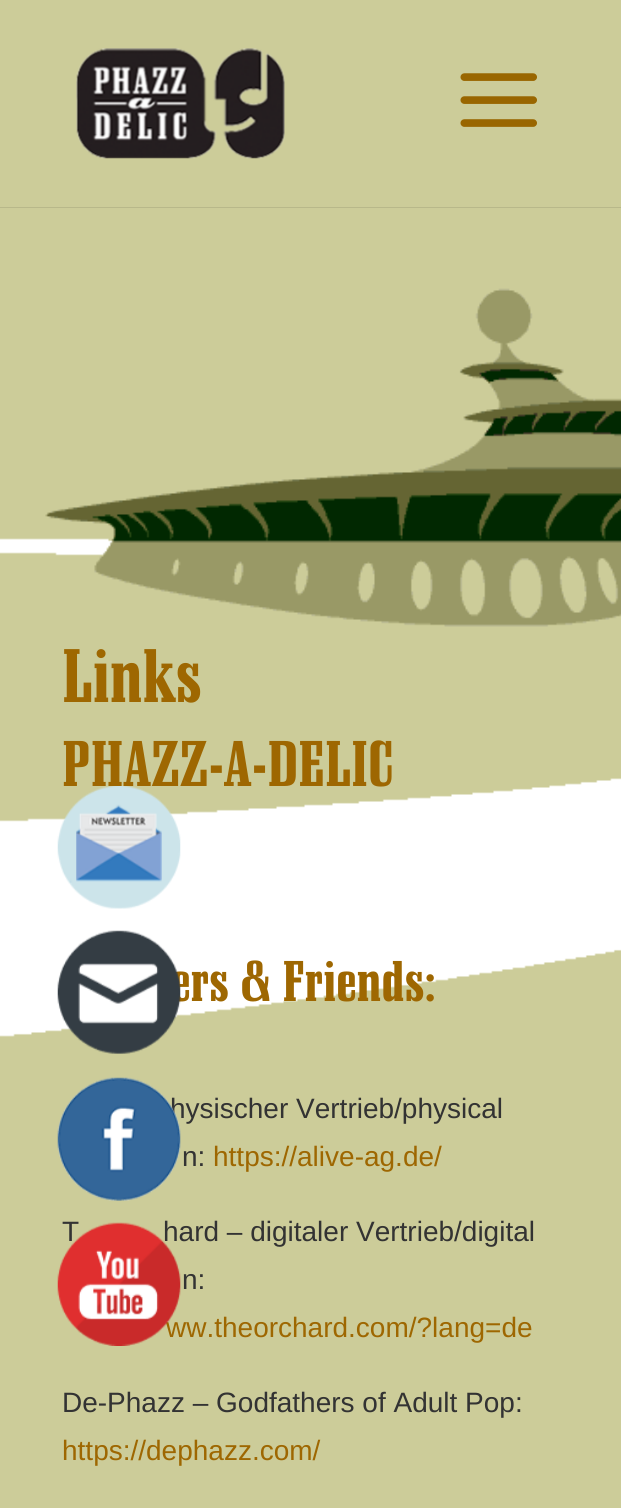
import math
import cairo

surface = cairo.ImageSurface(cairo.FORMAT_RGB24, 621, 1508)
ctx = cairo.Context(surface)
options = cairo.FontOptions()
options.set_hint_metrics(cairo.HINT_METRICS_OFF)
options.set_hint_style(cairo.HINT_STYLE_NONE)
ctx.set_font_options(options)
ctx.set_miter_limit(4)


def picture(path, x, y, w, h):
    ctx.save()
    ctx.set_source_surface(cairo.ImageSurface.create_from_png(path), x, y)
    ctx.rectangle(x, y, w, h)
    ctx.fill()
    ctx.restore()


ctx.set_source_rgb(0.8, 0.8, 0.6)
ctx.paint()
ctx.set_source_rgb(0.722, 0.722, 0.541)
ctx.rectangle(0, 207, 621, 1)
ctx.fill()
picture("img1.png", 76, 48, 209, 111)
picture("img2.png", 460, 73, 77, 54)
picture("img3.png", 0, 288, 621, 749)
ctx.select_font_face("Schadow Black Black")
ctx.set_font_size(74)
ctx.set_source_rgb(0.62, 0.404, 0.004)
ctx.move_to(62, 702)
ctx.show_text("Links")
ctx.set_font_size(63)
ctx.move_to(62, 786)
ctx.show_text("PHAZZ-A-DELIC")
ctx.set_font_size(56)
ctx.move_to(170, 1001)
ctx.show_text("ers & Friends:")
ctx.select_font_face("Liberation Sans")
ctx.set_font_size(28)
ctx.set_source_rgb(0.2, 0.2, 0.2)
ctx.move_to(170, 1118)
ctx.show_text("hysischer Vertrieb/physical")
ctx.move_to(182, 1166)
ctx.show_text("n:")
ctx.set_source_rgb(0.62, 0.404, 0.004)
ctx.move_to(213, 1166)
ctx.show_text("https://alive-ag.de/")
ctx.set_source_rgb(0.2, 0.2, 0.2)
ctx.move_to(62, 1241)
ctx.show_text("T")
ctx.move_to(163, 1241)
ctx.show_text("hard – digitaler Vertrieb/digital")
ctx.move_to(182, 1289)
ctx.show_text("n:")
ctx.set_source_rgb(0.62, 0.404, 0.004)
ctx.move_to(166, 1337)
ctx.show_text("ww.theorchard.com/?lang=de")
ctx.set_source_rgb(0.2, 0.2, 0.2)
ctx.move_to(62, 1412)
ctx.show_text("De-Phazz – Godfathers of Adult Pop:")
ctx.set_source_rgb(0.62, 0.404, 0.004)
ctx.move_to(62, 1460)
ctx.show_text("https://dephazz.com/")
picture("img4.png", 57, 786, 124, 123)
picture("img5.png", 57, 930, 124, 124)
picture("img6.png", 57, 1077, 124, 124)
picture("img7.png", 57, 1222, 124, 124)
surface.write_to_png("page.png")
